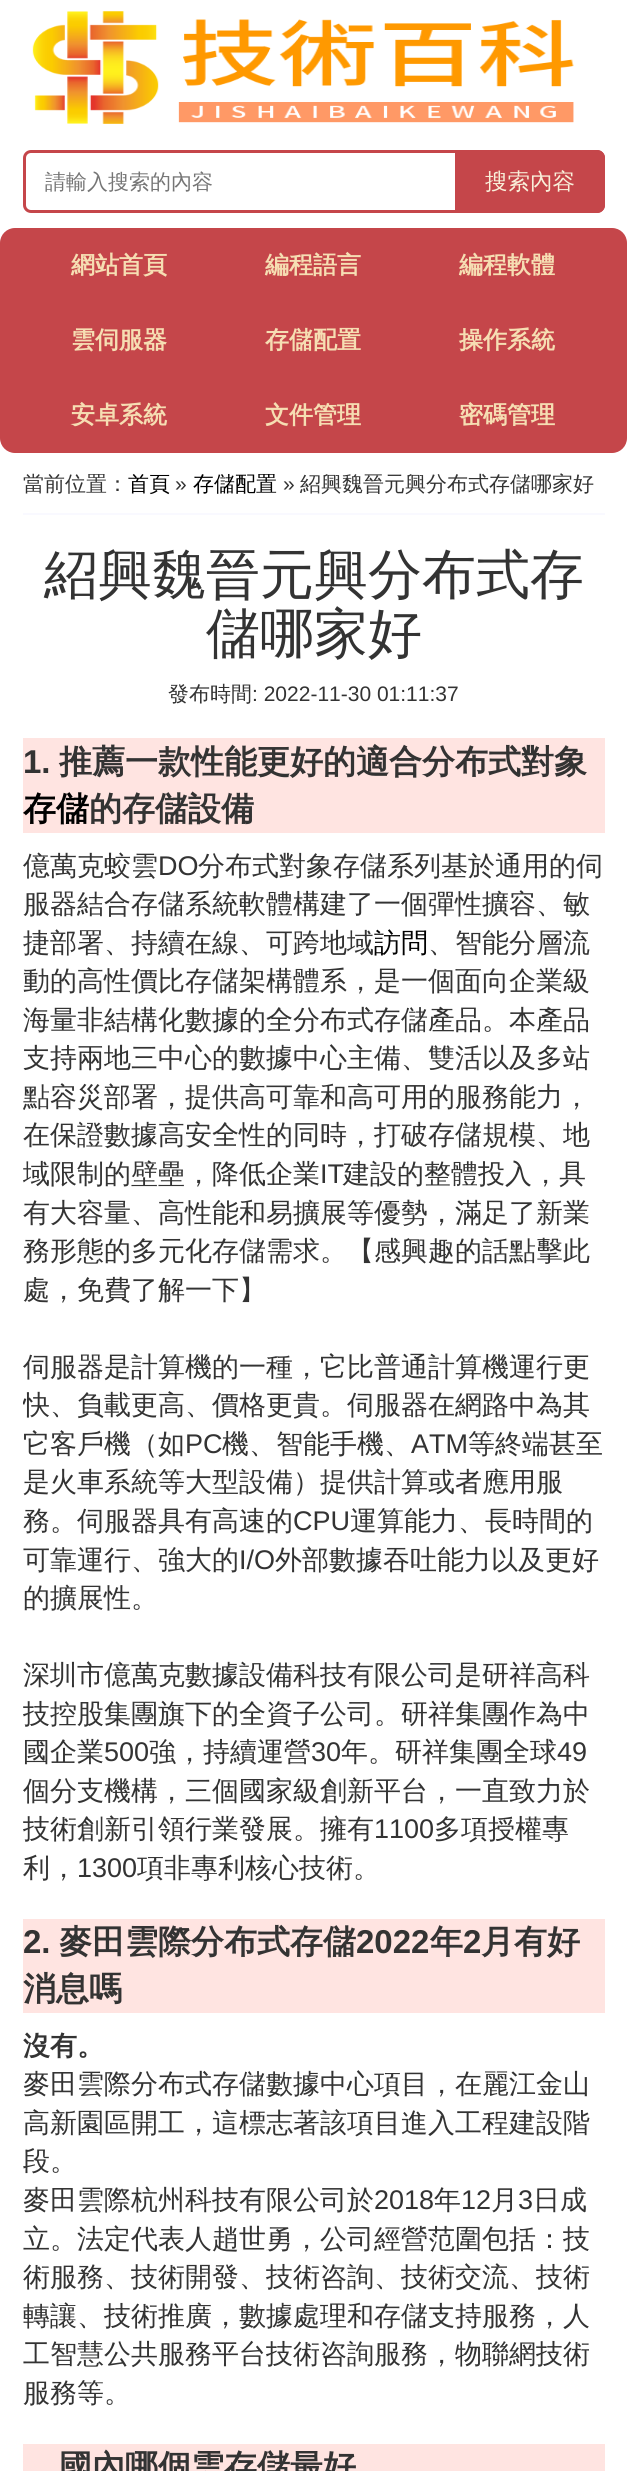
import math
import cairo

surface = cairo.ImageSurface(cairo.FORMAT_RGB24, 627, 2471)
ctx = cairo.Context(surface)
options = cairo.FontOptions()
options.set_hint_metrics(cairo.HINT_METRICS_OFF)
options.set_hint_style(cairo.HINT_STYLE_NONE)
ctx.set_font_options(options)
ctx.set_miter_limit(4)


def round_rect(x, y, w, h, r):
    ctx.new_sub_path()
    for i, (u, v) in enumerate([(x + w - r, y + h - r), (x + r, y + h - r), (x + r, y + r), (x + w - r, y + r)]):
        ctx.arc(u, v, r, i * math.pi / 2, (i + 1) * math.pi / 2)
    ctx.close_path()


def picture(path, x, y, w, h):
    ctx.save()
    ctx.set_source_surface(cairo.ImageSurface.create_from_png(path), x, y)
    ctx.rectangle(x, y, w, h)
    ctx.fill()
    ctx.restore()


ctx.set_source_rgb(1, 1, 1)
ctx.paint()
picture("img1.png", 32, 11, 542, 113)
round_rect(24.5, 151.5, 579, 60, 6.5)
ctx.set_source_rgb(0.773, 0.275, 0.29)
ctx.set_line_width(3)
ctx.stroke()
ctx.select_font_face("WenQuanYi Zen Hei Medium")
ctx.set_font_size(21)
ctx.set_source_rgb(0.459, 0.459, 0.459)
ctx.move_to(45, 189)
ctx.show_text("請輸入搜索的內容")
ctx.set_source_rgb(0.773, 0.275, 0.29)
ctx.new_path()
ctx.move_to(455, 150)
ctx.line_to(597, 150)
ctx.curve_to(601.5, 150, 605, 153.5, 605, 158)
ctx.line_to(605, 205)
ctx.curve_to(605, 209.5, 601.5, 213, 597, 213)
ctx.line_to(455, 213)
ctx.close_path()
ctx.fill()
ctx.set_font_size(22.5)
ctx.set_source_rgb(0.976, 0.941, 0.855)
ctx.move_to(485, 189)
ctx.show_text("搜索內容")
ctx.set_source_rgb(0.773, 0.275, 0.29)
round_rect(0, 228, 627, 225, 15)
ctx.fill()
ctx.select_font_face("WenQuanYi Zen Hei", cairo.FONT_SLANT_NORMAL, cairo.FONT_WEIGHT_BOLD)
ctx.set_font_size(24)
ctx.set_source_rgb(0.961, 0.871, 0.702)
ctx.move_to(71, 273)
ctx.show_text("網站首頁")
ctx.move_to(265, 273)
ctx.show_text("編程語言")
ctx.move_to(459, 273)
ctx.show_text("編程軟體")
ctx.move_to(71, 348)
ctx.show_text("雲伺服器")
ctx.move_to(265, 348)
ctx.show_text("存儲配置")
ctx.move_to(459, 348)
ctx.show_text("操作系統")
ctx.move_to(71, 423)
ctx.show_text("安卓系統")
ctx.move_to(265, 423)
ctx.show_text("文件管理")
ctx.move_to(459, 423)
ctx.show_text("密碼管理")
ctx.set_source_rgb(0.973, 0.973, 1)
ctx.rectangle(23, 513, 582, 2)
ctx.fill()
ctx.select_font_face("WenQuanYi Zen Hei Medium")
ctx.set_font_size(21)
ctx.set_source_rgb(0.2, 0.2, 0.2)
ctx.move_to(23, 491)
ctx.show_text("當前位置：")
ctx.set_source_rgb(0, 0, 0)
ctx.move_to(128, 491)
ctx.show_text("首頁")
ctx.select_font_face("Liberation Sans")
ctx.set_source_rgb(0.2, 0.2, 0.2)
ctx.move_to(175, 491)
ctx.show_text("»")
ctx.select_font_face("WenQuanYi Zen Hei Medium")
ctx.set_source_rgb(0, 0, 0)
ctx.move_to(193, 491)
ctx.show_text("存儲配置")
ctx.select_font_face("Liberation Sans")
ctx.set_source_rgb(0.2, 0.2, 0.2)
ctx.move_to(283, 491)
ctx.show_text("»")
ctx.select_font_face("WenQuanYi Zen Hei Medium")
ctx.move_to(300, 491)
ctx.show_text("紹興魏晉元興分布式存儲哪家好")
ctx.set_font_size(54)
ctx.move_to(44, 593)
ctx.show_text("紹興魏晉元興分布式存")
ctx.move_to(206, 652)
ctx.show_text("儲哪家好")
ctx.set_font_size(21)
ctx.move_to(168, 701)
ctx.show_text("發布時間")
ctx.select_font_face("Liberation Sans")
ctx.move_to(252, 701)
ctx.show_text(": 2022-11-30 01:11:37")
ctx.set_source_rgb(1, 0.894, 0.882)
ctx.rectangle(23, 738, 582, 95)
ctx.fill()
ctx.select_font_face("Liberation Sans", cairo.FONT_SLANT_NORMAL, cairo.FONT_WEIGHT_BOLD)
ctx.set_font_size(33)
ctx.set_source_rgb(0.2, 0.2, 0.2)
ctx.move_to(23, 773)
ctx.show_text("1.")
ctx.select_font_face("WenQuanYi Zen Hei", cairo.FONT_SLANT_NORMAL, cairo.FONT_WEIGHT_BOLD)
ctx.move_to(59, 773)
ctx.show_text("推薦一款性能更好的適合分布式對象")
ctx.set_source_rgb(0, 0, 0)
ctx.move_to(23, 820)
ctx.show_text("存儲")
ctx.set_source_rgb(0.2, 0.2, 0.2)
ctx.move_to(89, 820)
ctx.show_text("的存儲設備")
ctx.select_font_face("WenQuanYi Zen Hei Medium")
ctx.set_font_size(27)
ctx.move_to(23, 875)
ctx.show_text("億萬克蛟雲")
ctx.select_font_face("Liberation Sans")
ctx.move_to(158, 875)
ctx.show_text("DO")
ctx.select_font_face("WenQuanYi Zen Hei Medium")
ctx.move_to(198, 875)
ctx.show_text("分布式對象存儲系列基於通用的伺")
ctx.move_to(23, 913)
ctx.show_text("服器結合存儲系統軟體構建了一個彈性擴容、敏")
ctx.move_to(23, 952)
ctx.show_text("捷部署、持續在線、可跨地域")
ctx.set_source_rgb(0, 0, 0)
ctx.move_to(374, 952)
ctx.show_text("訪問")
ctx.set_source_rgb(0.2, 0.2, 0.2)
ctx.move_to(428, 952)
ctx.show_text("、智能分層流")
ctx.move_to(23, 990)
ctx.show_text("動的高性價比存儲架構體系，是一個面向企業級")
ctx.move_to(23, 1029)
ctx.show_text("海量非結構化數據的全分布式存儲產品。本產品")
ctx.move_to(23, 1067)
ctx.show_text("支持兩地三中心的數據中心主備、雙活以及多站")
ctx.move_to(23, 1106)
ctx.show_text("點容災部署，提供高可靠和高可用的服務能力，")
ctx.move_to(23, 1144)
ctx.show_text("在保證數據高安全性的同時，打破存儲規模、地")
ctx.save()
ctx.rectangle(23, 708, 582, 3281)
ctx.clip()
ctx.move_to(23, 1183)
ctx.show_text("域限制的壁壘，降低企業")
ctx.restore()
ctx.select_font_face("Liberation Sans")
ctx.move_to(320, 1183)
ctx.show_text("IT")
ctx.select_font_face("WenQuanYi Zen Hei Medium")
ctx.move_to(343, 1183)
ctx.show_text("建設的整體投入，具")
ctx.move_to(23, 1222)
ctx.show_text("有大容量、高性能和易擴展等優勢，滿足了新業")
ctx.move_to(23, 1260)
ctx.show_text("務形態的多元化存儲需求。【感興趣的話點擊此")
ctx.move_to(23, 1299)
ctx.show_text("處，免費了解一下】")
ctx.move_to(23, 1376)
ctx.show_text("伺服器是計算機的一種，它比普通計算機運行更")
ctx.save()
ctx.rectangle(23, 708, 582, 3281)
ctx.clip()
ctx.move_to(23, 1414)
ctx.show_text("快、負載更高、價格更貴。伺服器在網路中為其")
ctx.restore()
ctx.move_to(23, 1453)
ctx.show_text("它客戶機（如")
ctx.select_font_face("Liberation Sans")
ctx.move_to(185, 1453)
ctx.show_text("PC")
ctx.select_font_face("WenQuanYi Zen Hei Medium")
ctx.move_to(222, 1453)
ctx.show_text("機、智能手機、")
ctx.select_font_face("Liberation Sans")
ctx.move_to(411, 1453)
ctx.show_text("ATM")
ctx.select_font_face("WenQuanYi Zen Hei Medium")
ctx.move_to(468, 1453)
ctx.show_text("等終端甚至")
ctx.move_to(23, 1491)
ctx.show_text("是火車系統等大型設備）提供計算或者應用服")
ctx.move_to(23, 1530)
ctx.show_text("務。伺服器具有高速的")
ctx.select_font_face("Liberation Sans")
ctx.move_to(293, 1530)
ctx.show_text("CPU")
ctx.select_font_face("WenQuanYi Zen Hei Medium")
ctx.move_to(350, 1530)
ctx.show_text("運算能力、長時間的")
ctx.move_to(23, 1569)
ctx.show_text("可靠運行、強大的")
ctx.select_font_face("Liberation Sans")
ctx.move_to(239, 1569)
ctx.show_text("I/O")
ctx.select_font_face("WenQuanYi Zen Hei Medium")
ctx.move_to(275, 1569)
ctx.show_text("外部數據吞吐能力以及更好")
ctx.move_to(23, 1607)
ctx.show_text("的擴展性。")
ctx.move_to(23, 1684)
ctx.show_text("深圳市億萬克數據設備科技有限公司是研祥高科")
ctx.save()
ctx.rectangle(23, 708, 582, 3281)
ctx.clip()
ctx.move_to(23, 1723)
ctx.show_text("技控股集團旗下的全資子公司。研祥集團作為中")
ctx.restore()
ctx.move_to(23, 1761)
ctx.show_text("國企業")
ctx.select_font_face("Liberation Sans")
ctx.move_to(104, 1761)
ctx.show_text("500")
ctx.select_font_face("WenQuanYi Zen Hei Medium")
ctx.move_to(149, 1761)
ctx.show_text("強，持續運營")
ctx.select_font_face("Liberation Sans")
ctx.move_to(311, 1761)
ctx.show_text("30")
ctx.select_font_face("WenQuanYi Zen Hei Medium")
ctx.move_to(341, 1761)
ctx.show_text("年。研祥集團全球")
ctx.select_font_face("Liberation Sans")
ctx.move_to(557, 1761)
ctx.show_text("49")
ctx.select_font_face("WenQuanYi Zen Hei Medium")
ctx.move_to(23, 1800)
ctx.show_text("個分支機構，三個國家級創新平台，一直致力於")
ctx.save()
ctx.rectangle(23, 708, 582, 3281)
ctx.clip()
ctx.move_to(23, 1838)
ctx.show_text("技術創新引領行業發展。擁有")
ctx.restore()
ctx.select_font_face("Liberation Sans")
ctx.move_to(374, 1838)
ctx.show_text("1100")
ctx.select_font_face("WenQuanYi Zen Hei Medium")
ctx.move_to(434, 1838)
ctx.show_text("多項授權專")
ctx.move_to(23, 1877)
ctx.show_text("利，")
ctx.select_font_face("Liberation Sans")
ctx.move_to(77, 1877)
ctx.show_text("1300")
ctx.select_font_face("WenQuanYi Zen Hei Medium")
ctx.move_to(137, 1877)
ctx.show_text("項非專利核心技術。")
ctx.set_source_rgb(1, 0.894, 0.882)
ctx.rectangle(23, 1919, 582, 94)
ctx.fill()
ctx.select_font_face("Liberation Sans", cairo.FONT_SLANT_NORMAL, cairo.FONT_WEIGHT_BOLD)
ctx.set_font_size(33)
ctx.set_source_rgb(0.2, 0.2, 0.2)
ctx.move_to(23, 1953)
ctx.show_text("2.")
ctx.select_font_face("WenQuanYi Zen Hei", cairo.FONT_SLANT_NORMAL, cairo.FONT_WEIGHT_BOLD)
ctx.move_to(59, 1953)
ctx.show_text("麥田雲際分布式存儲")
ctx.select_font_face("Liberation Sans", cairo.FONT_SLANT_NORMAL, cairo.FONT_WEIGHT_BOLD)
ctx.move_to(356, 1953)
ctx.show_text("2022")
ctx.select_font_face("WenQuanYi Zen Hei", cairo.FONT_SLANT_NORMAL, cairo.FONT_WEIGHT_BOLD)
ctx.move_to(430, 1953)
ctx.show_text("年")
ctx.select_font_face("Liberation Sans", cairo.FONT_SLANT_NORMAL, cairo.FONT_WEIGHT_BOLD)
ctx.move_to(463, 1953)
ctx.show_text("2")
ctx.select_font_face("WenQuanYi Zen Hei", cairo.FONT_SLANT_NORMAL, cairo.FONT_WEIGHT_BOLD)
ctx.move_to(481, 1953)
ctx.show_text("月有好")
ctx.move_to(23, 2000)
ctx.show_text("消息嗎")
ctx.set_font_size(27)
ctx.move_to(23, 2055)
ctx.show_text("沒有。")
ctx.select_font_face("WenQuanYi Zen Hei Medium")
ctx.move_to(23, 2093)
ctx.show_text("麥田雲際分布式存儲數據中心項目，在麗江金山")
ctx.move_to(23, 2132)
ctx.show_text("高新園區開工，這標志著該項目進入工程建設階")
ctx.move_to(23, 2170)
ctx.show_text("段。")
ctx.move_to(23, 2209)
ctx.show_text("麥田雲際杭州科技有限公司於")
ctx.select_font_face("Liberation Sans")
ctx.move_to(374, 2209)
ctx.show_text("2018")
ctx.select_font_face("WenQuanYi Zen Hei Medium")
ctx.move_to(434, 2209)
ctx.show_text("年")
ctx.select_font_face("Liberation Sans")
ctx.move_to(461, 2209)
ctx.show_text("12")
ctx.select_font_face("WenQuanYi Zen Hei Medium")
ctx.move_to(491, 2209)
ctx.show_text("月")
ctx.select_font_face("Liberation Sans")
ctx.move_to(518, 2209)
ctx.show_text("3")
ctx.select_font_face("WenQuanYi Zen Hei Medium")
ctx.move_to(533, 2209)
ctx.show_text("日成")
ctx.move_to(23, 2248)
ctx.show_text("立。法定代表人趙世勇，公司經營范圍包括：技")
ctx.move_to(23, 2286)
ctx.show_text("術服務、技術開發、技術咨詢、技術交流、技術")
ctx.move_to(23, 2325)
ctx.show_text("轉讓、技術推廣，數據處理和存儲支持服務，人")
ctx.move_to(23, 2363)
ctx.show_text("工智慧公共服務平台技術咨詢服務，物聯網技術")
ctx.move_to(23, 2402)
ctx.show_text("服務等。")
ctx.set_source_rgb(1, 0.894, 0.882)
ctx.rectangle(23, 2444, 582, 27)
ctx.fill()
ctx.select_font_face("WenQuanYi Zen Hei", cairo.FONT_SLANT_NORMAL, cairo.FONT_WEIGHT_BOLD)
ctx.set_font_size(33)
ctx.set_source_rgb(0.2, 0.2, 0.2)
ctx.move_to(59, 2478)
ctx.show_text("國內哪個雲存儲最好")
surface.write_to_png("page.png")
